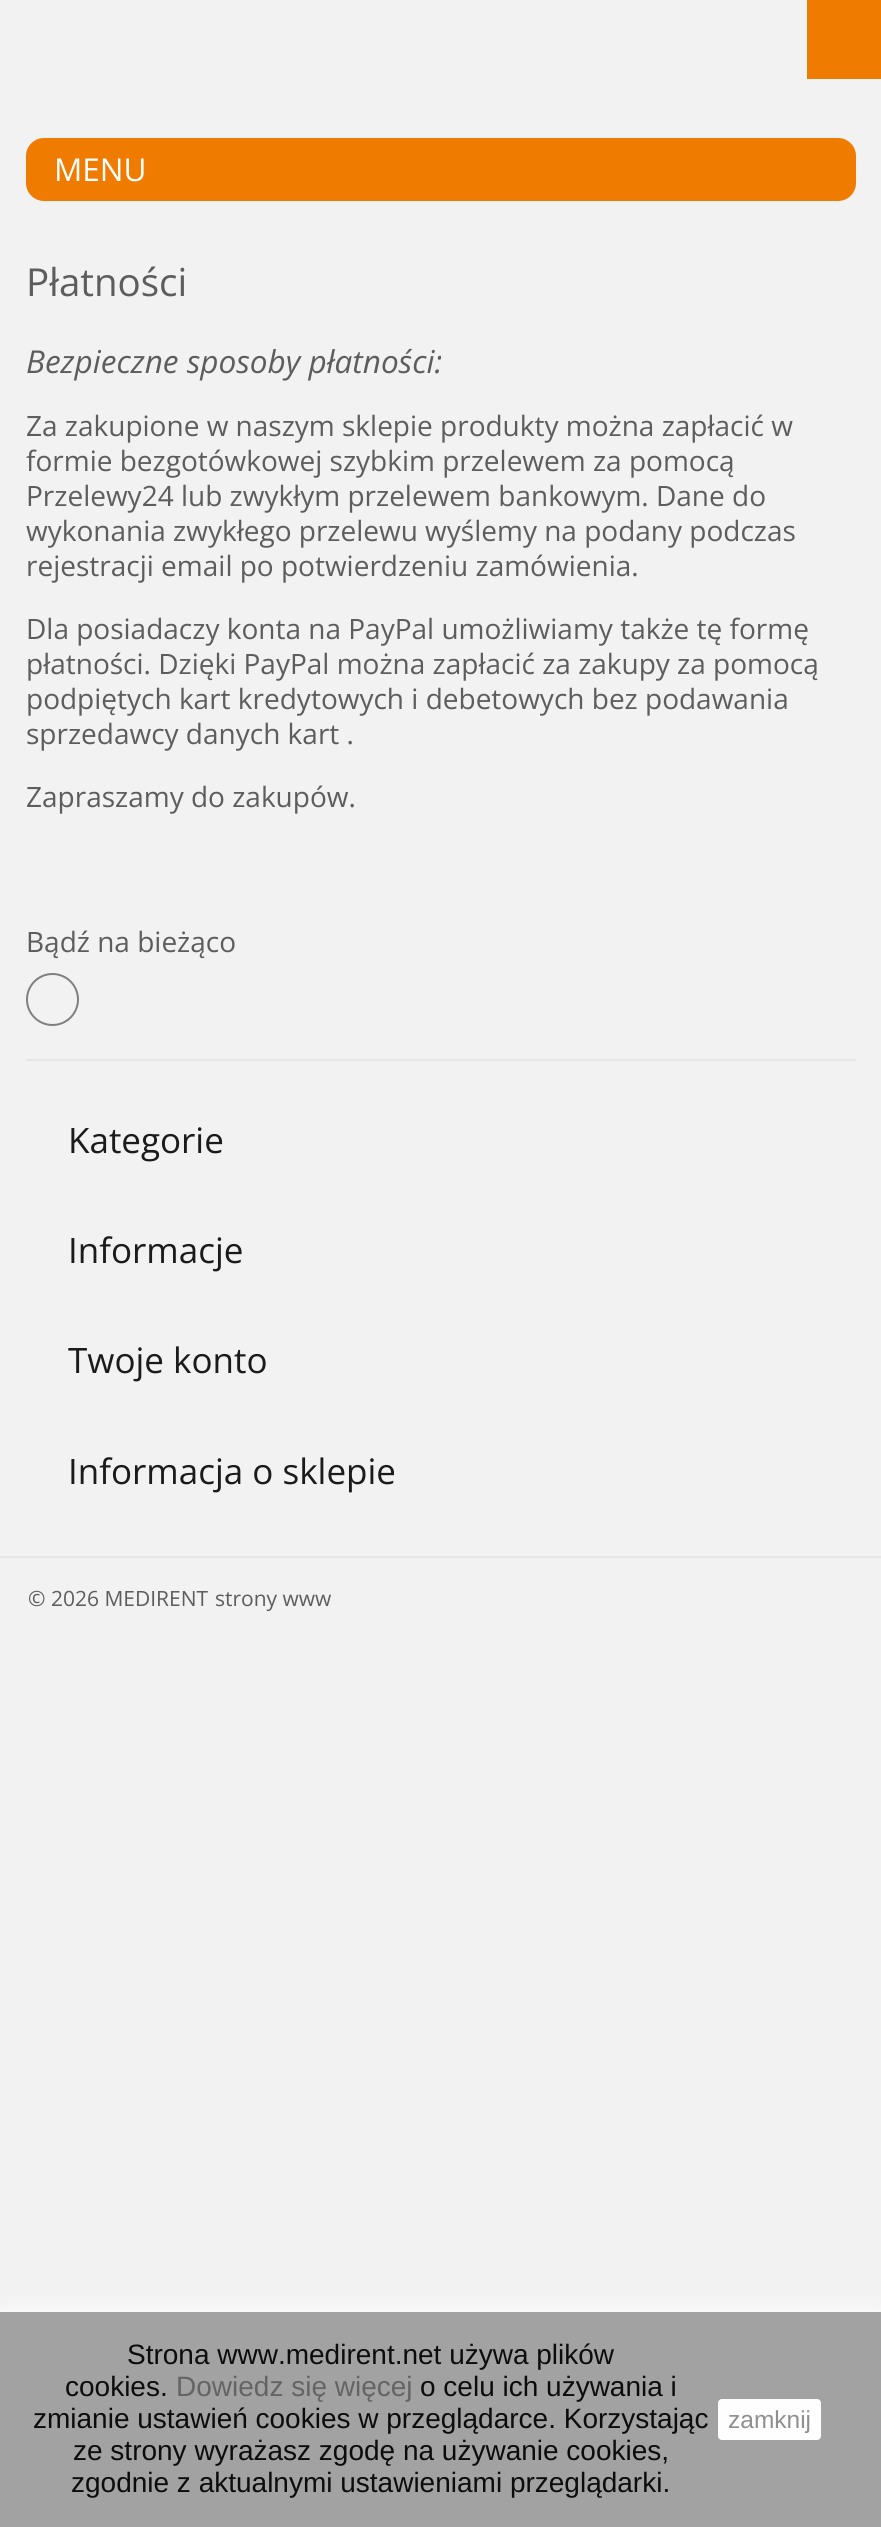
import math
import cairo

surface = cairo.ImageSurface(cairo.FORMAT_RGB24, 881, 2527)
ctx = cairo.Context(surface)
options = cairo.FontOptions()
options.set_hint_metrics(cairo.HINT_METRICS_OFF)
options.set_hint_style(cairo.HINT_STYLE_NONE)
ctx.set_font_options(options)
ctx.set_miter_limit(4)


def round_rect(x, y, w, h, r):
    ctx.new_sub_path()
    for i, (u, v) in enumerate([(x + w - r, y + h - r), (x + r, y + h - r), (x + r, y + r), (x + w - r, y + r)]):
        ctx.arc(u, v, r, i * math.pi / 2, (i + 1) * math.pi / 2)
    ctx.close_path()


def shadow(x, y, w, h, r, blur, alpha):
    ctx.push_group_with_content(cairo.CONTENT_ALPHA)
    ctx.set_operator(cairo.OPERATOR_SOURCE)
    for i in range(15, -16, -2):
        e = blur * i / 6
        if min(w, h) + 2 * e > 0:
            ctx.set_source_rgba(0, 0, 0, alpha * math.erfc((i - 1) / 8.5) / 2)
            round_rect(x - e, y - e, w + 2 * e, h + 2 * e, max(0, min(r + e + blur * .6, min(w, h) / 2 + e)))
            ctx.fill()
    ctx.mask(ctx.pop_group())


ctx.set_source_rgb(0.949, 0.949, 0.949)
ctx.paint()
ctx.set_source_rgb(0.937, 0.486, 0)
ctx.rectangle(807, 0, 74, 79)
ctx.fill()
round_rect(26, 138, 830, 63, 18)
ctx.fill()
ctx.select_font_face("Open Sans")
ctx.set_font_size(31.5)
ctx.set_source_rgb(1, 1, 1)
ctx.move_to(54, 181)
ctx.show_text("MENU")
ctx.set_font_size(38.5)
ctx.set_source_rgb(0.365, 0.365, 0.365)
ctx.move_to(26, 296)
ctx.show_text("Płatności")
ctx.select_font_face("Open Sans", cairo.FONT_SLANT_ITALIC)
ctx.set_font_size(31.5)
ctx.move_to(26, 373)
ctx.show_text("Bezpieczne sposoby płatności:")
ctx.select_font_face("Open Sans")
ctx.set_font_size(28)
ctx.move_to(26, 436)
ctx.show_text("Za zakupione w naszym sklepie produkty można zapłacić w")
ctx.move_to(26, 471)
ctx.show_text("formie bezgotówkowej szybkim przelewem za pomocą")
ctx.move_to(26, 506)
ctx.show_text("Przelewy24 lub zwykłym przelewem bankowym. Dane do")
ctx.move_to(26, 541)
ctx.show_text("wykonania zwykłego przelewu wyślemy na podany podczas")
ctx.move_to(26, 576)
ctx.show_text("rejestracji email po potwierdzeniu zamówienia.")
ctx.move_to(26, 639)
ctx.show_text("Dla posiadaczy konta na PayPal umożliwiamy także tę formę")
ctx.move_to(26, 674)
ctx.show_text("płatności. Dzięki PayPal można zapłacić za zakupy za pomocą")
ctx.move_to(26, 709)
ctx.show_text("podpiętych kart kredytowych i debetowych bez podawania")
ctx.move_to(26, 744)
ctx.show_text("sprzedawcy danych kart .")
ctx.move_to(26, 807)
ctx.show_text("Zapraszamy do zakupów.")
ctx.set_source_rgb(0.902, 0.902, 0.902)
ctx.rectangle(26, 1059, 830, 2)
ctx.fill()
ctx.set_source_rgb(0.365, 0.365, 0.365)
ctx.move_to(26, 952)
ctx.show_text("Bądź na bieżąco")
ctx.new_path()
ctx.arc(52.5, 999.5, 25.5, 0, 2 * math.pi)
ctx.set_source_rgb(0.502, 0.502, 0.502)
ctx.stroke()
ctx.set_font_size(35)
ctx.set_source_rgb(0.106, 0.106, 0.106)
ctx.move_to(68, 1153)
ctx.show_text("Kategorie")
ctx.move_to(68, 1263)
ctx.show_text("Informacje")
ctx.move_to(68, 1373)
ctx.show_text("Twoje konto")
ctx.move_to(68, 1484)
ctx.show_text("Informacja o sklepie")
ctx.set_source_rgb(0.996, 0.996, 0.996)
shadow(0, 2312, 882, 215, 0, 9, 1)
ctx.set_source_rgb(0.635, 0.635, 0.635)
ctx.rectangle(0, 2312, 881, 215)
ctx.fill()
ctx.select_font_face("Liberation Sans")
ctx.set_font_size(28)
ctx.set_source_rgb(0.047, 0.047, 0.047)
ctx.move_to(127, 2364)
ctx.show_text("Strona www.medirent.net używa plików")
ctx.move_to(65, 2396)
ctx.show_text("cookies.")
ctx.set_source_rgb(0.392, 0.392, 0.392)
ctx.move_to(176, 2396)
ctx.show_text("Dowiedz się więcej")
ctx.set_source_rgb(0.047, 0.047, 0.047)
ctx.move_to(420, 2396)
ctx.show_text("o celu ich używania i")
ctx.move_to(33, 2428)
ctx.show_text("zmianie ustawień cookies w przeglądarce. Korzystając")
ctx.move_to(73, 2460)
ctx.show_text("ze strony wyrażasz zgodę na używanie cookies,")
ctx.move_to(71, 2492)
ctx.show_text("zgodnie z aktualnymi ustawieniami przeglądarki.")
ctx.set_source_rgb(0.996, 0.996, 0.996)
round_rect(718, 2399, 103, 41, 4)
ctx.fill()
ctx.set_font_size(24.5)
ctx.set_source_rgb(0.561, 0.561, 0.561)
ctx.move_to(728, 2428)
ctx.show_text("zamknij")
ctx.set_source_rgb(0.902, 0.902, 0.902)
ctx.rectangle(0, 1556, 881, 2)
ctx.fill()
ctx.select_font_face("Open Sans")
ctx.set_font_size(21)
ctx.set_source_rgb(0.365, 0.365, 0.365)
ctx.move_to(28, 1606)
ctx.show_text("© 2026 MEDIRENT")
ctx.move_to(215, 1606)
ctx.show_text("strony www")
surface.write_to_png("page.png")
